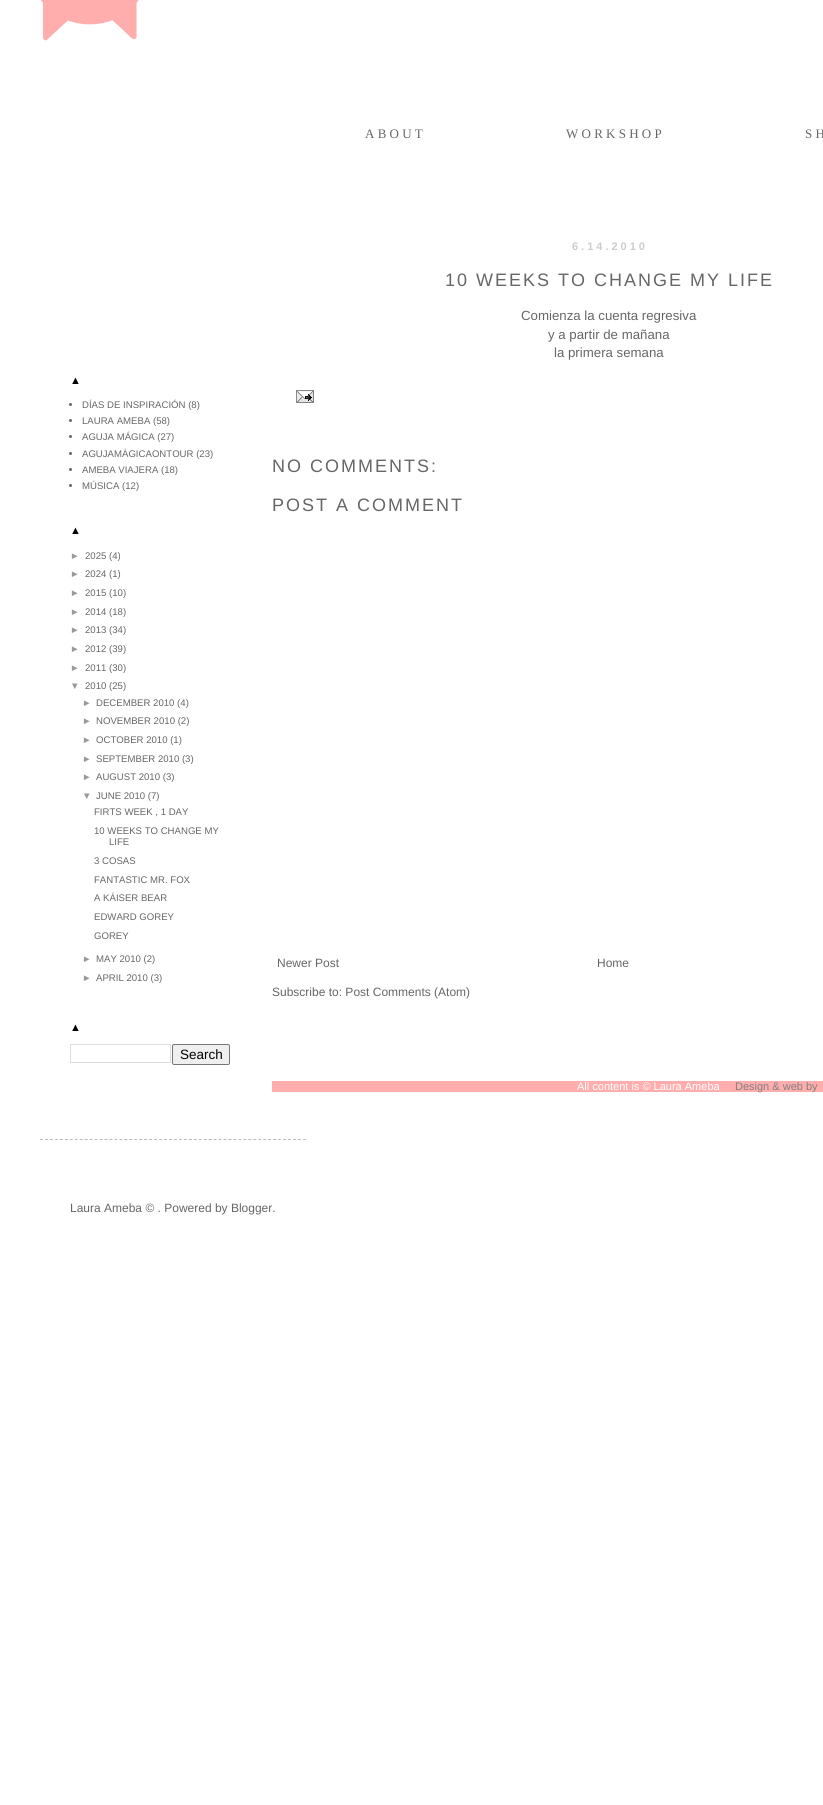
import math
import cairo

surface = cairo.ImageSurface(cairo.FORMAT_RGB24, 823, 1805)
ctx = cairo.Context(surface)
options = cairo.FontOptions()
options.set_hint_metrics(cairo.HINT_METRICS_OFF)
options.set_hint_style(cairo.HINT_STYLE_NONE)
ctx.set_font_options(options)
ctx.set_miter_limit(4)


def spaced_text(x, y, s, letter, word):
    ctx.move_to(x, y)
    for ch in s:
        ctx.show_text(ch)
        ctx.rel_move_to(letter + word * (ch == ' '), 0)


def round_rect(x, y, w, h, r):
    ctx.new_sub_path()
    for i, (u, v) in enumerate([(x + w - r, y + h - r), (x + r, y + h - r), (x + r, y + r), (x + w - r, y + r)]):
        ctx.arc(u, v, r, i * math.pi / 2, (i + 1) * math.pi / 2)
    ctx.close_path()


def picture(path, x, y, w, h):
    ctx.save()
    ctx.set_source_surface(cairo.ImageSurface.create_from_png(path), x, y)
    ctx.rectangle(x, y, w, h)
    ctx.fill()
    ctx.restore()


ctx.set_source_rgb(1, 1, 1)
ctx.paint()
picture("img1.png", 40, 0, 99, 41)
ctx.select_font_face("Liberation Serif")
ctx.set_font_size(13)
ctx.set_source_rgb(0.4, 0.4, 0.4)
ctx.move_to(365, 138)
ctx.show_text("A B O U T")
ctx.move_to(566, 138)
ctx.show_text("W O R K S H O P")
ctx.move_to(805, 138)
ctx.show_text("S H")
ctx.select_font_face("Liberation Sans", cairo.FONT_SLANT_NORMAL, cairo.FONT_WEIGHT_BOLD)
ctx.set_font_size(11)
ctx.set_source_rgb(0, 0, 0)
ctx.move_to(70, 384)
ctx.show_text("▲")
ctx.set_source_rgb(0.4, 0.4, 0.4)
ctx.new_path()
ctx.arc(70.5, 404.5, 1.5, 0, 2 * math.pi)
ctx.fill()
ctx.select_font_face("Liberation Sans")
ctx.set_font_size(9.6)
ctx.move_to(82, 408)
ctx.show_text("DÍAS DE INSPIRACIÓN (8)")
ctx.new_path()
ctx.arc(70.5, 420.5, 1.5, 0, 2 * math.pi)
ctx.fill()
ctx.move_to(82, 424)
ctx.show_text("LAURA AMEBA (58)")
ctx.new_path()
ctx.arc(70.5, 436.5, 1.5, 0, 2 * math.pi)
ctx.fill()
ctx.move_to(82, 440)
ctx.show_text("AGUJA MÁGICA (27)")
ctx.new_path()
ctx.arc(70.5, 453.5, 1.5, 0, 2 * math.pi)
ctx.fill()
ctx.move_to(82, 457)
ctx.show_text("AGUJAMÁGICAONTOUR (23)")
ctx.new_path()
ctx.arc(70.5, 469.5, 1.5, 0, 2 * math.pi)
ctx.fill()
ctx.move_to(82, 473)
ctx.show_text("AMEBA VIAJERA (18)")
ctx.new_path()
ctx.arc(70.5, 485.5, 1.5, 0, 2 * math.pi)
ctx.fill()
ctx.move_to(82, 489)
ctx.show_text("MÚSICA (12)")
ctx.select_font_face("Liberation Sans", cairo.FONT_SLANT_NORMAL, cairo.FONT_WEIGHT_BOLD)
ctx.set_font_size(11)
ctx.set_source_rgb(0, 0, 0)
ctx.move_to(70, 534)
ctx.show_text("▲")
ctx.select_font_face("Liberation Sans")
ctx.set_font_size(9.6)
ctx.set_source_rgb(0.6, 0.6, 0.6)
ctx.move_to(70, 559)
ctx.show_text("►")
ctx.set_source_rgb(0.4, 0.4, 0.4)
ctx.move_to(85, 559)
ctx.show_text("2025 (4)")
ctx.set_source_rgb(0.6, 0.6, 0.6)
ctx.move_to(70, 577)
ctx.show_text("►")
ctx.set_source_rgb(0.4, 0.4, 0.4)
ctx.move_to(85, 577)
ctx.show_text("2024 (1)")
ctx.set_source_rgb(0.6, 0.6, 0.6)
ctx.move_to(70, 596)
ctx.show_text("►")
ctx.set_source_rgb(0.4, 0.4, 0.4)
ctx.move_to(85, 596)
ctx.show_text("2015 (10)")
ctx.set_source_rgb(0.6, 0.6, 0.6)
ctx.move_to(70, 615)
ctx.show_text("►")
ctx.set_source_rgb(0.4, 0.4, 0.4)
ctx.move_to(85, 615)
ctx.show_text("2014 (18)")
ctx.set_source_rgb(0.6, 0.6, 0.6)
ctx.move_to(70, 633)
ctx.show_text("►")
ctx.set_source_rgb(0.4, 0.4, 0.4)
ctx.move_to(85, 633)
ctx.show_text("2013 (34)")
ctx.set_source_rgb(0.6, 0.6, 0.6)
ctx.move_to(70, 652)
ctx.show_text("►")
ctx.set_source_rgb(0.4, 0.4, 0.4)
ctx.move_to(85, 652)
ctx.show_text("2012 (39)")
ctx.set_source_rgb(0.6, 0.6, 0.6)
ctx.move_to(70, 671)
ctx.show_text("►")
ctx.set_source_rgb(0.4, 0.4, 0.4)
ctx.move_to(85, 671)
ctx.show_text("2011 (30)")
ctx.set_source_rgb(0.6, 0.6, 0.6)
ctx.move_to(70, 689)
ctx.show_text("▼")
ctx.set_source_rgb(0.4, 0.4, 0.4)
ctx.move_to(85, 689)
ctx.show_text("2010 (25)")
ctx.set_source_rgb(0.6, 0.6, 0.6)
ctx.move_to(82, 706)
ctx.show_text("►")
ctx.set_source_rgb(0.4, 0.4, 0.4)
ctx.move_to(96, 706)
ctx.show_text("DECEMBER 2010 (4)")
ctx.set_source_rgb(0.6, 0.6, 0.6)
ctx.move_to(82, 724)
ctx.show_text("►")
ctx.set_source_rgb(0.4, 0.4, 0.4)
ctx.move_to(96, 724)
ctx.show_text("NOVEMBER 2010 (2)")
ctx.set_source_rgb(0.6, 0.6, 0.6)
ctx.move_to(82, 743)
ctx.show_text("►")
ctx.set_source_rgb(0.4, 0.4, 0.4)
ctx.move_to(96, 743)
ctx.show_text("OCTOBER 2010 (1)")
ctx.set_source_rgb(0.6, 0.6, 0.6)
ctx.move_to(82, 762)
ctx.show_text("►")
ctx.set_source_rgb(0.4, 0.4, 0.4)
ctx.move_to(96, 762)
ctx.show_text("SEPTEMBER 2010 (3)")
ctx.set_source_rgb(0.6, 0.6, 0.6)
ctx.move_to(82, 780)
ctx.show_text("►")
ctx.set_source_rgb(0.4, 0.4, 0.4)
ctx.move_to(96, 780)
ctx.show_text("AUGUST 2010 (3)")
ctx.set_source_rgb(0.6, 0.6, 0.6)
ctx.move_to(82, 799)
ctx.show_text("▼")
ctx.set_source_rgb(0.4, 0.4, 0.4)
ctx.move_to(96, 799)
ctx.show_text("JUNE 2010 (7)")
ctx.move_to(94, 815)
ctx.show_text("FIRTS WEEK , 1 DAY")
ctx.move_to(94, 834)
ctx.show_text("10 WEEKS TO CHANGE MY")
ctx.move_to(109, 845)
ctx.show_text("LIFE")
ctx.move_to(94, 864)
ctx.show_text("3 COSAS")
ctx.move_to(94, 883)
ctx.show_text("FANTASTIC MR. FOX")
ctx.move_to(94, 901)
ctx.show_text("A KÁISER BEAR")
ctx.move_to(94, 920)
ctx.show_text("EDWARD GOREY")
ctx.move_to(94, 939)
ctx.show_text("GOREY")
ctx.set_source_rgb(0.6, 0.6, 0.6)
ctx.move_to(82, 962)
ctx.show_text("►")
ctx.set_source_rgb(0.4, 0.4, 0.4)
ctx.move_to(96, 962)
ctx.show_text("MAY 2010 (2)")
ctx.set_source_rgb(0.6, 0.6, 0.6)
ctx.move_to(82, 981)
ctx.show_text("►")
ctx.set_source_rgb(0.4, 0.4, 0.4)
ctx.move_to(96, 981)
ctx.show_text("APRIL 2010 (3)")
ctx.select_font_face("Liberation Sans", cairo.FONT_SLANT_NORMAL, cairo.FONT_WEIGHT_BOLD)
ctx.set_font_size(11)
ctx.set_source_rgb(0, 0, 0)
ctx.move_to(70, 1031)
ctx.show_text("▲")
ctx.rectangle(70.5, 1044.5, 100, 18)
ctx.set_source_rgb(0.867, 0.867, 0.867)
ctx.set_line_width(1)
ctx.stroke()
ctx.set_source_rgb(0.937, 0.937, 0.937)
round_rect(172.5, 1044.5, 57, 20, 1.5)
ctx.fill_preserve()
ctx.set_source_rgb(0.463, 0.463, 0.463)
ctx.stroke()
ctx.select_font_face("Liberation Sans")
ctx.set_font_size(13.5)
ctx.set_source_rgb(0, 0, 0)
ctx.move_to(180, 1059)
ctx.show_text("Search")
ctx.select_font_face("Liberation Sans", cairo.FONT_SLANT_NORMAL, cairo.FONT_WEIGHT_BOLD)
ctx.set_font_size(11)
ctx.set_source_rgb(0.8, 0.8, 0.8)
spaced_text(572, 250, "6.14.2010", 3, 0)
ctx.select_font_face("Liberation Sans")
ctx.set_font_size(18)
ctx.set_source_rgb(0.4, 0.4, 0.4)
spaced_text(445, 286, "10 WEEKS TO CHANGE MY LIFE", 2, 0)
ctx.set_font_size(13.25)
ctx.move_to(521, 320)
ctx.show_text("Comienza la cuenta regresiva")
ctx.move_to(548, 339)
ctx.show_text("y a partir de mañana")
ctx.move_to(554, 357)
ctx.show_text("la primera semana")
picture("img2.png", 296, 390, 18, 13)
ctx.set_font_size(18)
spaced_text(272, 472, "NO COMMENTS:", 2, 0)
spaced_text(272, 511, "POST A COMMENT", 2, 0)
ctx.set_font_size(12)
ctx.move_to(277, 967)
ctx.show_text("Newer Post")
ctx.move_to(597, 967)
ctx.show_text("Home")
ctx.move_to(272, 996)
ctx.show_text("Subscribe to: Post Comments (Atom)")
ctx.set_source_rgb(1, 0.678, 0.678)
ctx.rectangle(272, 1081, 551, 11)
ctx.fill()
ctx.set_font_size(11)
ctx.set_source_rgb(1, 1, 1)
ctx.move_to(577, 1090)
ctx.show_text("All content is © Laura Ameba")
ctx.set_source_rgb(0.502, 0.502, 0.502)
ctx.move_to(735, 1090)
ctx.show_text("Design & web by")
ctx.new_path()
ctx.move_to(40, 1139.5)
ctx.line_to(306, 1139.5)
ctx.set_source_rgb(0.733, 0.733, 0.733)
ctx.set_dash([3, 1.96])
ctx.stroke()
ctx.set_font_size(12)
ctx.set_source_rgb(0.4, 0.4, 0.4)
ctx.move_to(70, 1212)
ctx.show_text("Laura Ameba © . Powered by Blogger.")
surface.write_to_png("page.png")
